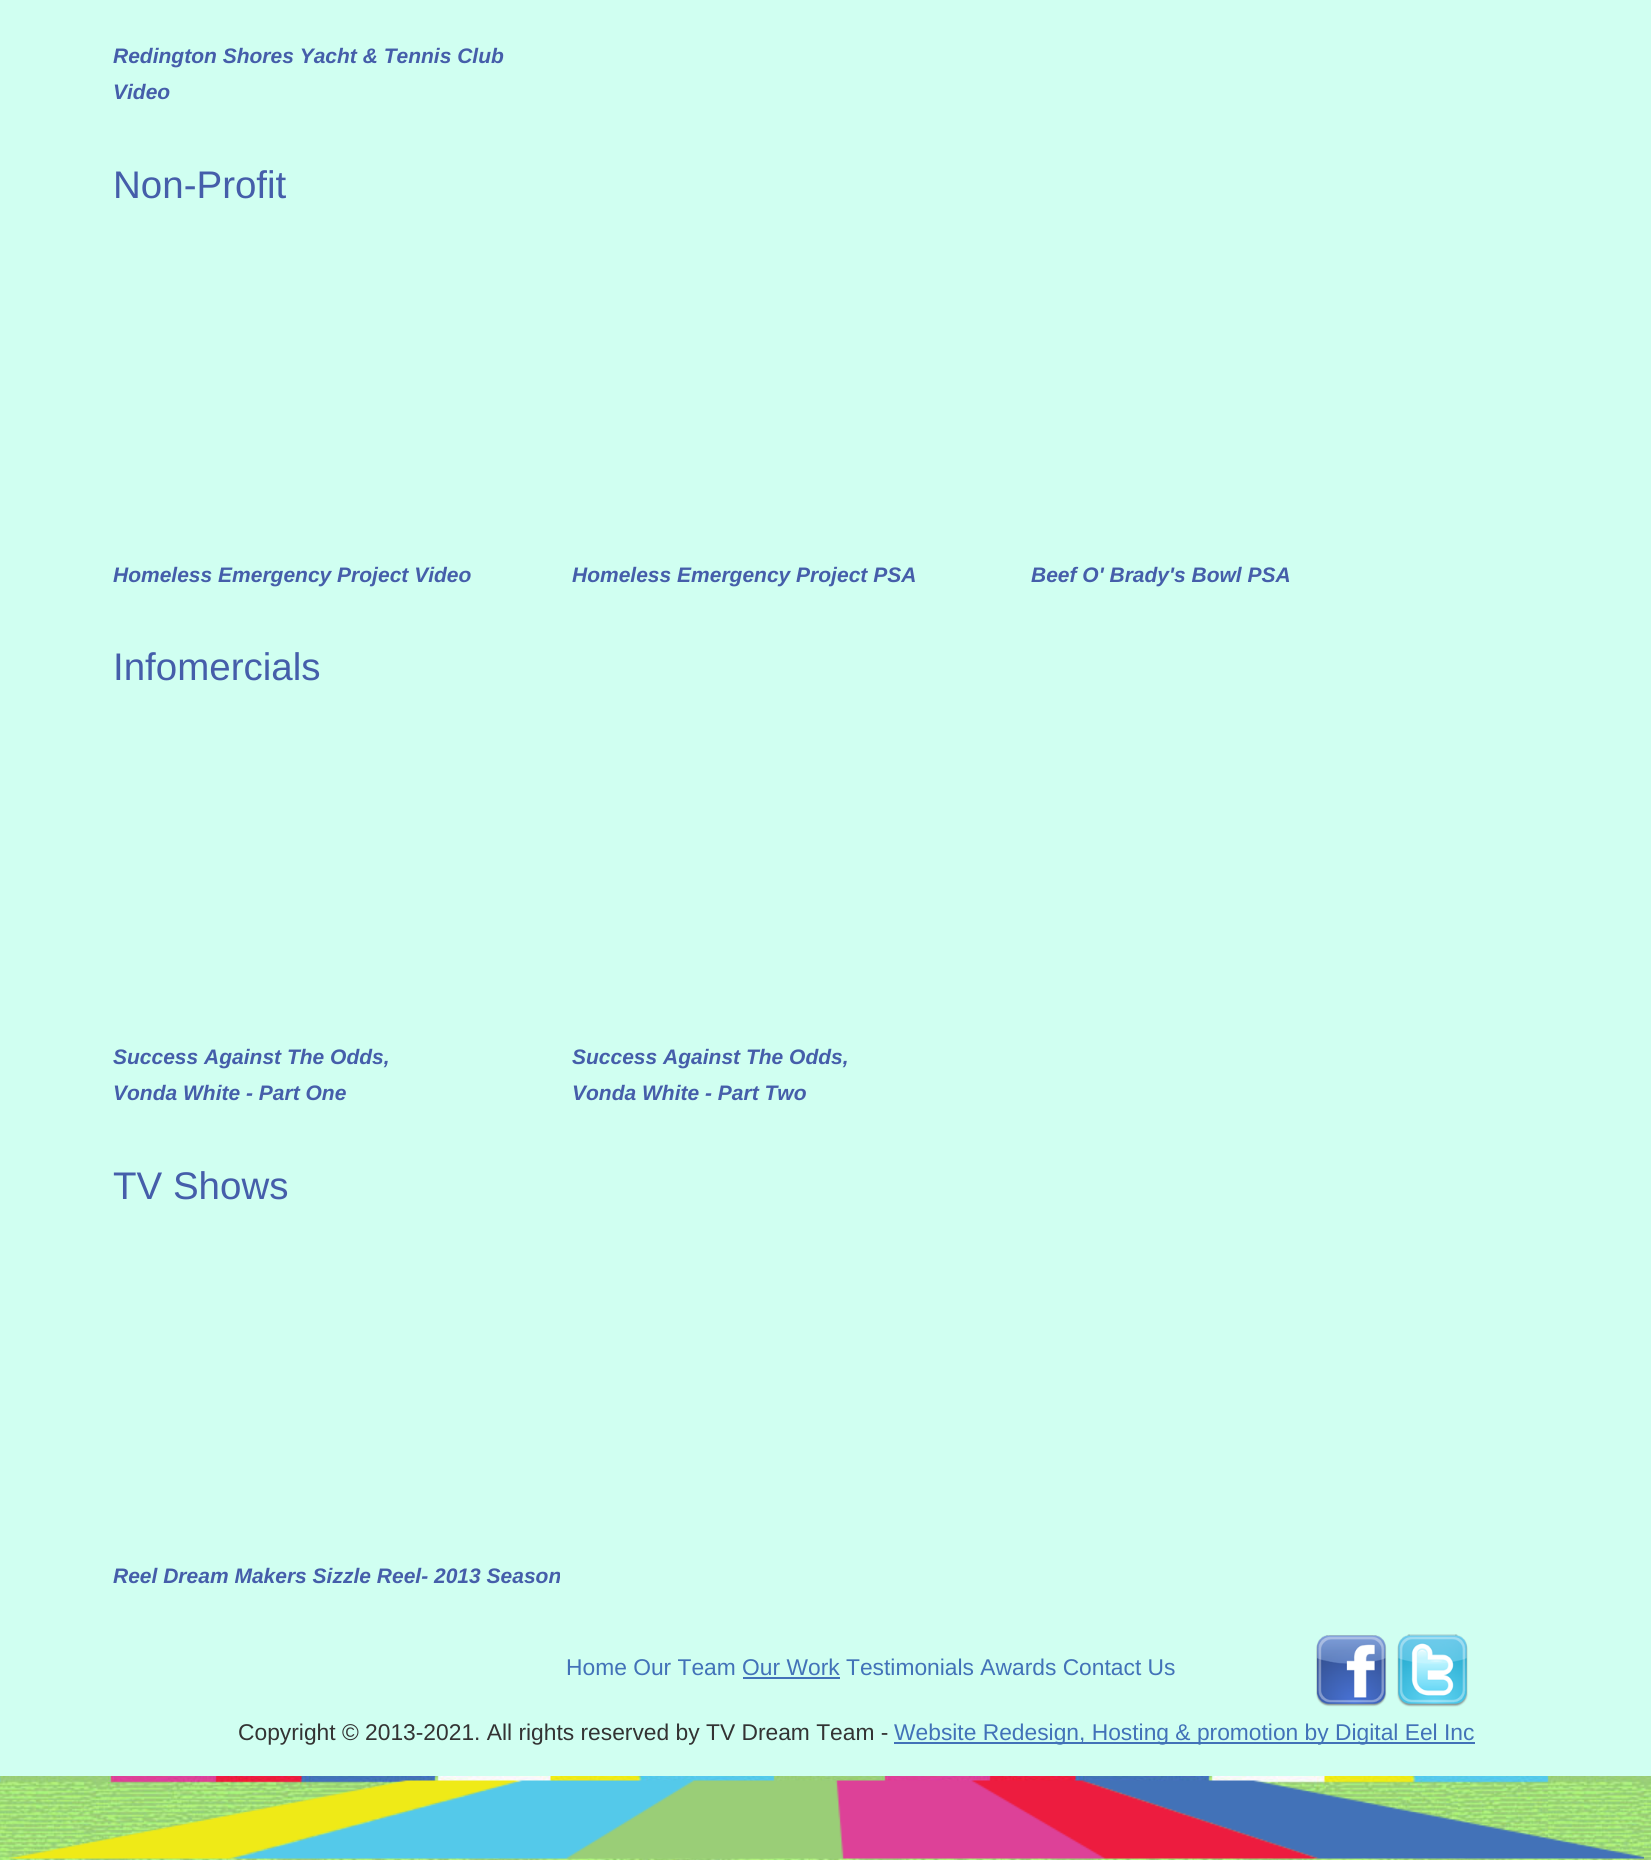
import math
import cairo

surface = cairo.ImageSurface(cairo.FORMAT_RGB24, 1651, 1860)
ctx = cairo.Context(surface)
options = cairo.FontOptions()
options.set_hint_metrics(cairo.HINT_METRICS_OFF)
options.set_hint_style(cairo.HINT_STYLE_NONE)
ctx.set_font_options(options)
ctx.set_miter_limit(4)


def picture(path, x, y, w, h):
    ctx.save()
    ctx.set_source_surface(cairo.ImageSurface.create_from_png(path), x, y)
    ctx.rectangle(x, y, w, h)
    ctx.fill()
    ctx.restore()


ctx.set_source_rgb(0.816, 1, 0.945)
ctx.paint()
ctx.select_font_face("Liberation Sans", cairo.FONT_SLANT_ITALIC, cairo.FONT_WEIGHT_BOLD)
ctx.set_font_size(21)
ctx.set_source_rgb(0.271, 0.369, 0.667)
ctx.move_to(113, 63)
ctx.show_text("Redington Shores Yacht & Tennis Club")
ctx.move_to(113, 99)
ctx.show_text("Video")
ctx.select_font_face("Liberation Sans")
ctx.set_font_size(38.5)
ctx.move_to(113, 198)
ctx.show_text("Non-Profit")
ctx.select_font_face("Liberation Sans", cairo.FONT_SLANT_ITALIC, cairo.FONT_WEIGHT_BOLD)
ctx.set_font_size(21)
ctx.move_to(113, 582)
ctx.show_text("Homeless Emergency Project Video")
ctx.move_to(572, 582)
ctx.show_text("Homeless Emergency Project PSA")
ctx.move_to(1031, 582)
ctx.show_text("Beef O' Brady's Bowl PSA")
ctx.select_font_face("Liberation Sans")
ctx.set_font_size(38.5)
ctx.move_to(113, 680)
ctx.show_text("Infomercials")
ctx.select_font_face("Liberation Sans", cairo.FONT_SLANT_ITALIC, cairo.FONT_WEIGHT_BOLD)
ctx.set_font_size(21)
ctx.move_to(113, 1064)
ctx.show_text("Success Against The Odds,")
ctx.move_to(113, 1100)
ctx.show_text("Vonda White - Part One")
ctx.move_to(572, 1064)
ctx.show_text("Success Against The Odds,")
ctx.move_to(572, 1100)
ctx.show_text("Vonda White - Part Two")
ctx.select_font_face("Liberation Sans")
ctx.set_font_size(38.5)
ctx.move_to(113, 1199)
ctx.show_text("TV Shows")
ctx.select_font_face("Liberation Sans", cairo.FONT_SLANT_ITALIC, cairo.FONT_WEIGHT_BOLD)
ctx.set_font_size(21)
ctx.move_to(113, 1583)
ctx.show_text("Reel Dream Makers Sizzle Reel- 2013 Season")
ctx.select_font_face("Liberation Sans")
ctx.set_font_size(22.8)
ctx.set_source_rgb(0.259, 0.447, 0.722)
ctx.move_to(566, 1675)
ctx.show_text("Home Our Team Our Work Testimonials Awards Contact Us")
ctx.rectangle(743, 1677, 97, 2)
ctx.fill()
picture("img1.png", 1316, 1635, 71, 72)
picture("img2.png", 1397, 1634, 71, 73)
ctx.set_source_rgb(0.2, 0.2, 0.2)
ctx.move_to(238, 1740)
ctx.show_text("Copyright © 2013-2021. All rights reserved by TV Dream Team -")
ctx.set_source_rgb(0.259, 0.447, 0.722)
ctx.rectangle(894, 1742, 581, 2)
ctx.fill()
ctx.move_to(894, 1740)
ctx.show_text("Website Redesign, Hosting & promotion by Digital Eel Inc")
picture("img3.png", 0, 1776, 1651, 84)
picture("img4.png", 9, 1780, 1635, 79)
surface.write_to_png("page.png")
